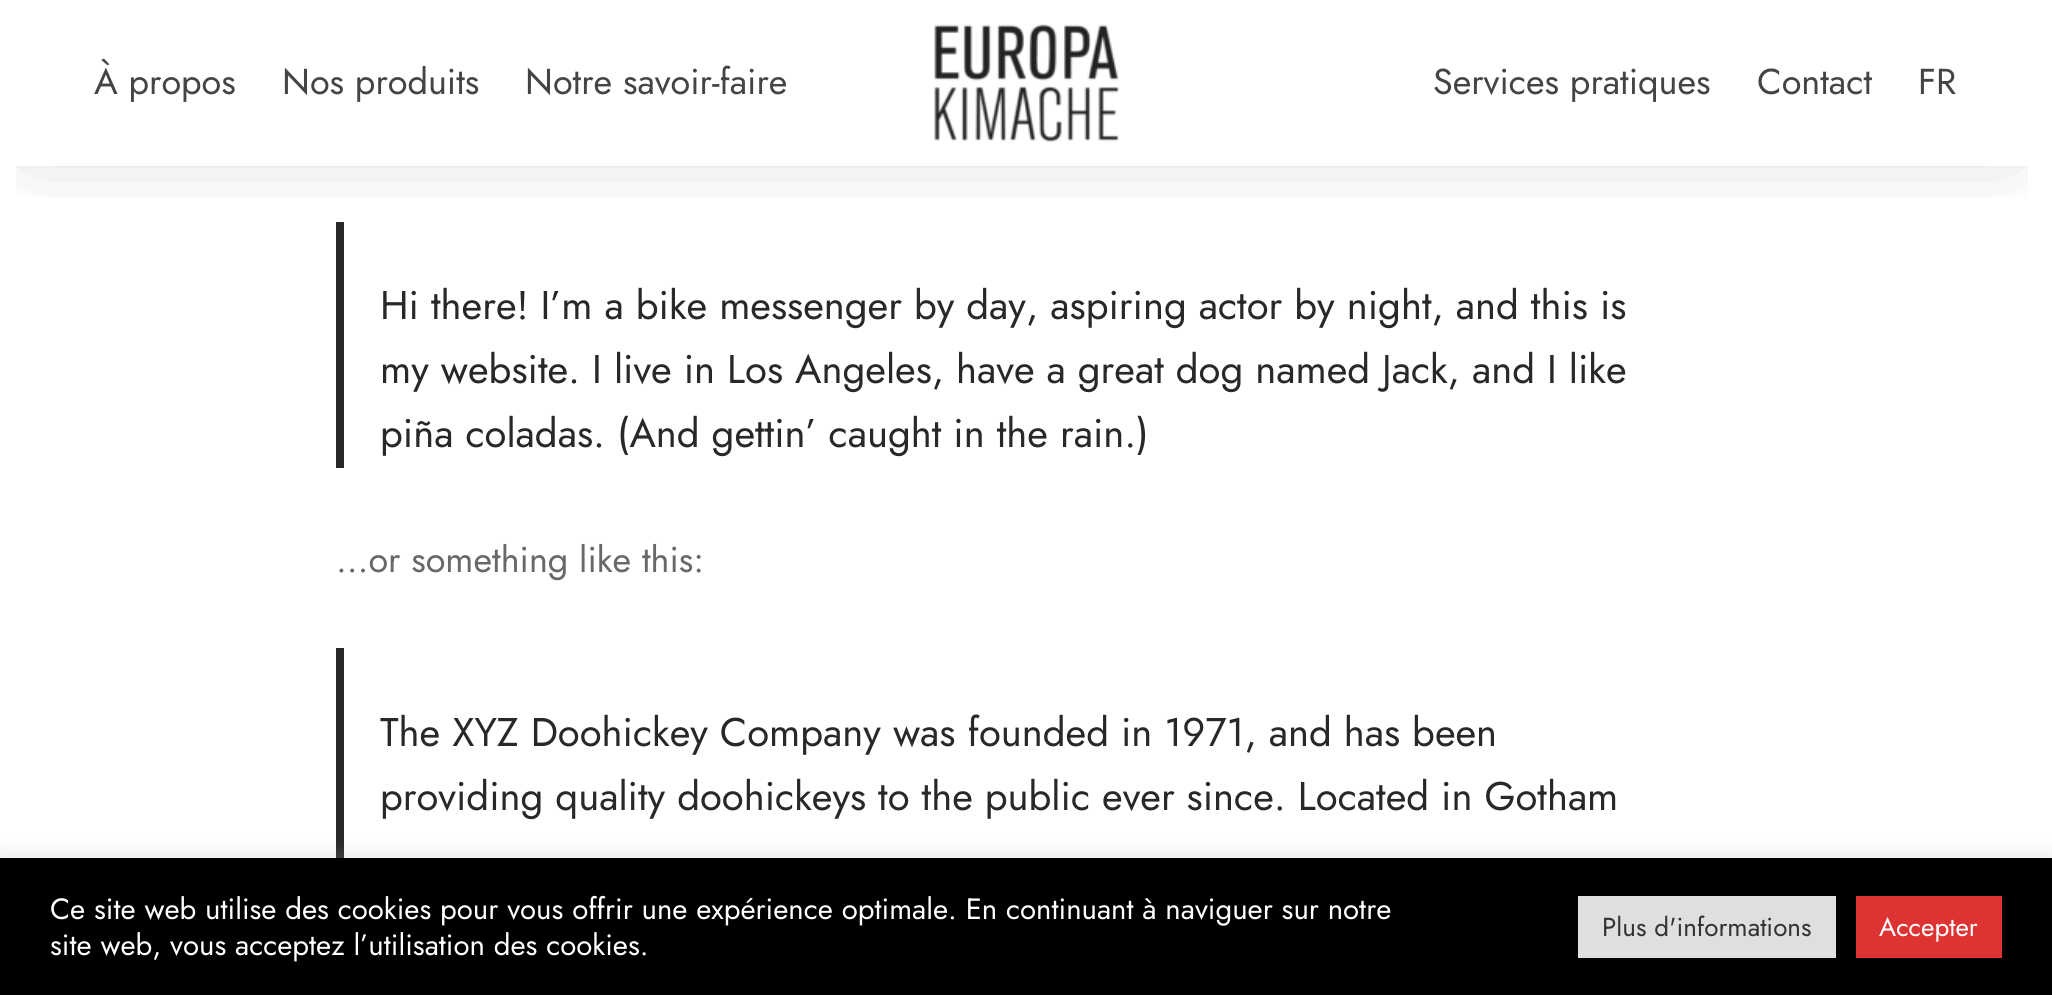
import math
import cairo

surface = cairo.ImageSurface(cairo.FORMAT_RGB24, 2052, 995)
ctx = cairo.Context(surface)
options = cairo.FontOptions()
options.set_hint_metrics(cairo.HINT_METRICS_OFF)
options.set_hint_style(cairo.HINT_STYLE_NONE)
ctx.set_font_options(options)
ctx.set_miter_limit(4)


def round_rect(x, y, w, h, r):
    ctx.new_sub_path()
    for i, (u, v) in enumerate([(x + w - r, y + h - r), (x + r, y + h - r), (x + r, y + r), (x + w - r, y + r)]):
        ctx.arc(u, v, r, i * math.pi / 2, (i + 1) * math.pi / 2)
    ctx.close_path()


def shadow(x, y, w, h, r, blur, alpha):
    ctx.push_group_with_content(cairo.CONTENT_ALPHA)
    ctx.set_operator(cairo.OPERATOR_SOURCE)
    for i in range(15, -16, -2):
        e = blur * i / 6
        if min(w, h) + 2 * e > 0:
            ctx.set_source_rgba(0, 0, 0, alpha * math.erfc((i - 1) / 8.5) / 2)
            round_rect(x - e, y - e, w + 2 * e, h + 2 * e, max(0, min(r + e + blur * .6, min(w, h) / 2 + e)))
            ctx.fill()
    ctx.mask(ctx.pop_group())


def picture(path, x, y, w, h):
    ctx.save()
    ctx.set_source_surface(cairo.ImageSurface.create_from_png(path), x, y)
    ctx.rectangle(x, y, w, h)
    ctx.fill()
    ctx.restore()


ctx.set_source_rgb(1, 1, 1)
ctx.paint()
ctx.set_source_rgb(0.157, 0.157, 0.157)
ctx.rectangle(336, 222, 8, 246)
ctx.fill()
ctx.save()
ctx.rectangle(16, 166, 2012, 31)
ctx.clip()
ctx.set_source_rgb(0, 0, 0)
shadow(36, 44, 1972, 86, 0, 45, 0.3)
ctx.restore()
ctx.select_font_face("Jost")
ctx.set_font_size(36)
ctx.set_source_rgb(0.267, 0.267, 0.267)
ctx.move_to(94, 94)
ctx.show_text("À propos")
ctx.move_to(282, 94)
ctx.show_text("Nos produits")
ctx.move_to(525, 94)
ctx.show_text("Notre savoir-faire")
picture("img1.png", 934, 24, 186, 118)
ctx.move_to(1433, 94)
ctx.show_text("Services pratiques")
ctx.move_to(1757, 94)
ctx.show_text("Contact")
ctx.move_to(1918, 94)
ctx.show_text("FR")
ctx.set_font_size(40)
ctx.set_source_rgb(0.157, 0.157, 0.157)
ctx.move_to(380, 319)
ctx.show_text("Hi there! I’m a bike messenger by day, aspiring actor by night, and this is")
ctx.move_to(380, 383)
ctx.show_text("my website. I live in Los Angeles, have a great dog named Jack, and I like")
ctx.move_to(380, 447)
ctx.show_text("piña coladas. (And gettin’ caught in the rain.)")
ctx.set_font_size(36)
ctx.set_source_rgb(0.408, 0.408, 0.408)
ctx.move_to(336, 572)
ctx.show_text("…or something like this:")
ctx.set_source_rgb(0.157, 0.157, 0.157)
ctx.rectangle(336, 648, 8, 210)
ctx.fill()
ctx.set_font_size(40)
ctx.move_to(380, 746)
ctx.show_text("The XYZ Doohickey Company was founded in 1971, and has been")
ctx.move_to(380, 810)
ctx.show_text("providing quality doohickeys to the public ever since. Located in Gotham")
ctx.set_source_rgb(0.675, 0.671, 0.671)
shadow(0, 856, 2052, 138, 0, 10, 0.3)
ctx.set_source_rgb(0, 0, 0)
ctx.rectangle(0, 858, 2052, 137)
ctx.fill()
ctx.set_font_size(29.35)
ctx.set_source_rgb(1, 1, 1)
ctx.move_to(50, 919)
ctx.show_text("Ce site web utilise des cookies pour vous offrir une expérience optimale. En continuant à naviguer sur notre")
ctx.move_to(50, 955)
ctx.show_text("site web, vous acceptez l’utilisation des cookies.")
ctx.set_source_rgb(0.871, 0.875, 0.878)
ctx.rectangle(1578, 896, 258, 62)
ctx.fill()
ctx.set_font_size(26)
ctx.set_source_rgb(0.2, 0.2, 0.2)
ctx.move_to(1602, 936)
ctx.show_text("Plus d'informations")
ctx.set_source_rgb(0.867, 0.2, 0.2)
ctx.rectangle(1856, 896, 146, 62)
ctx.fill()
ctx.set_source_rgb(1, 1, 1)
ctx.move_to(1879, 936)
ctx.show_text("Accepter")
surface.write_to_png("page.png")
